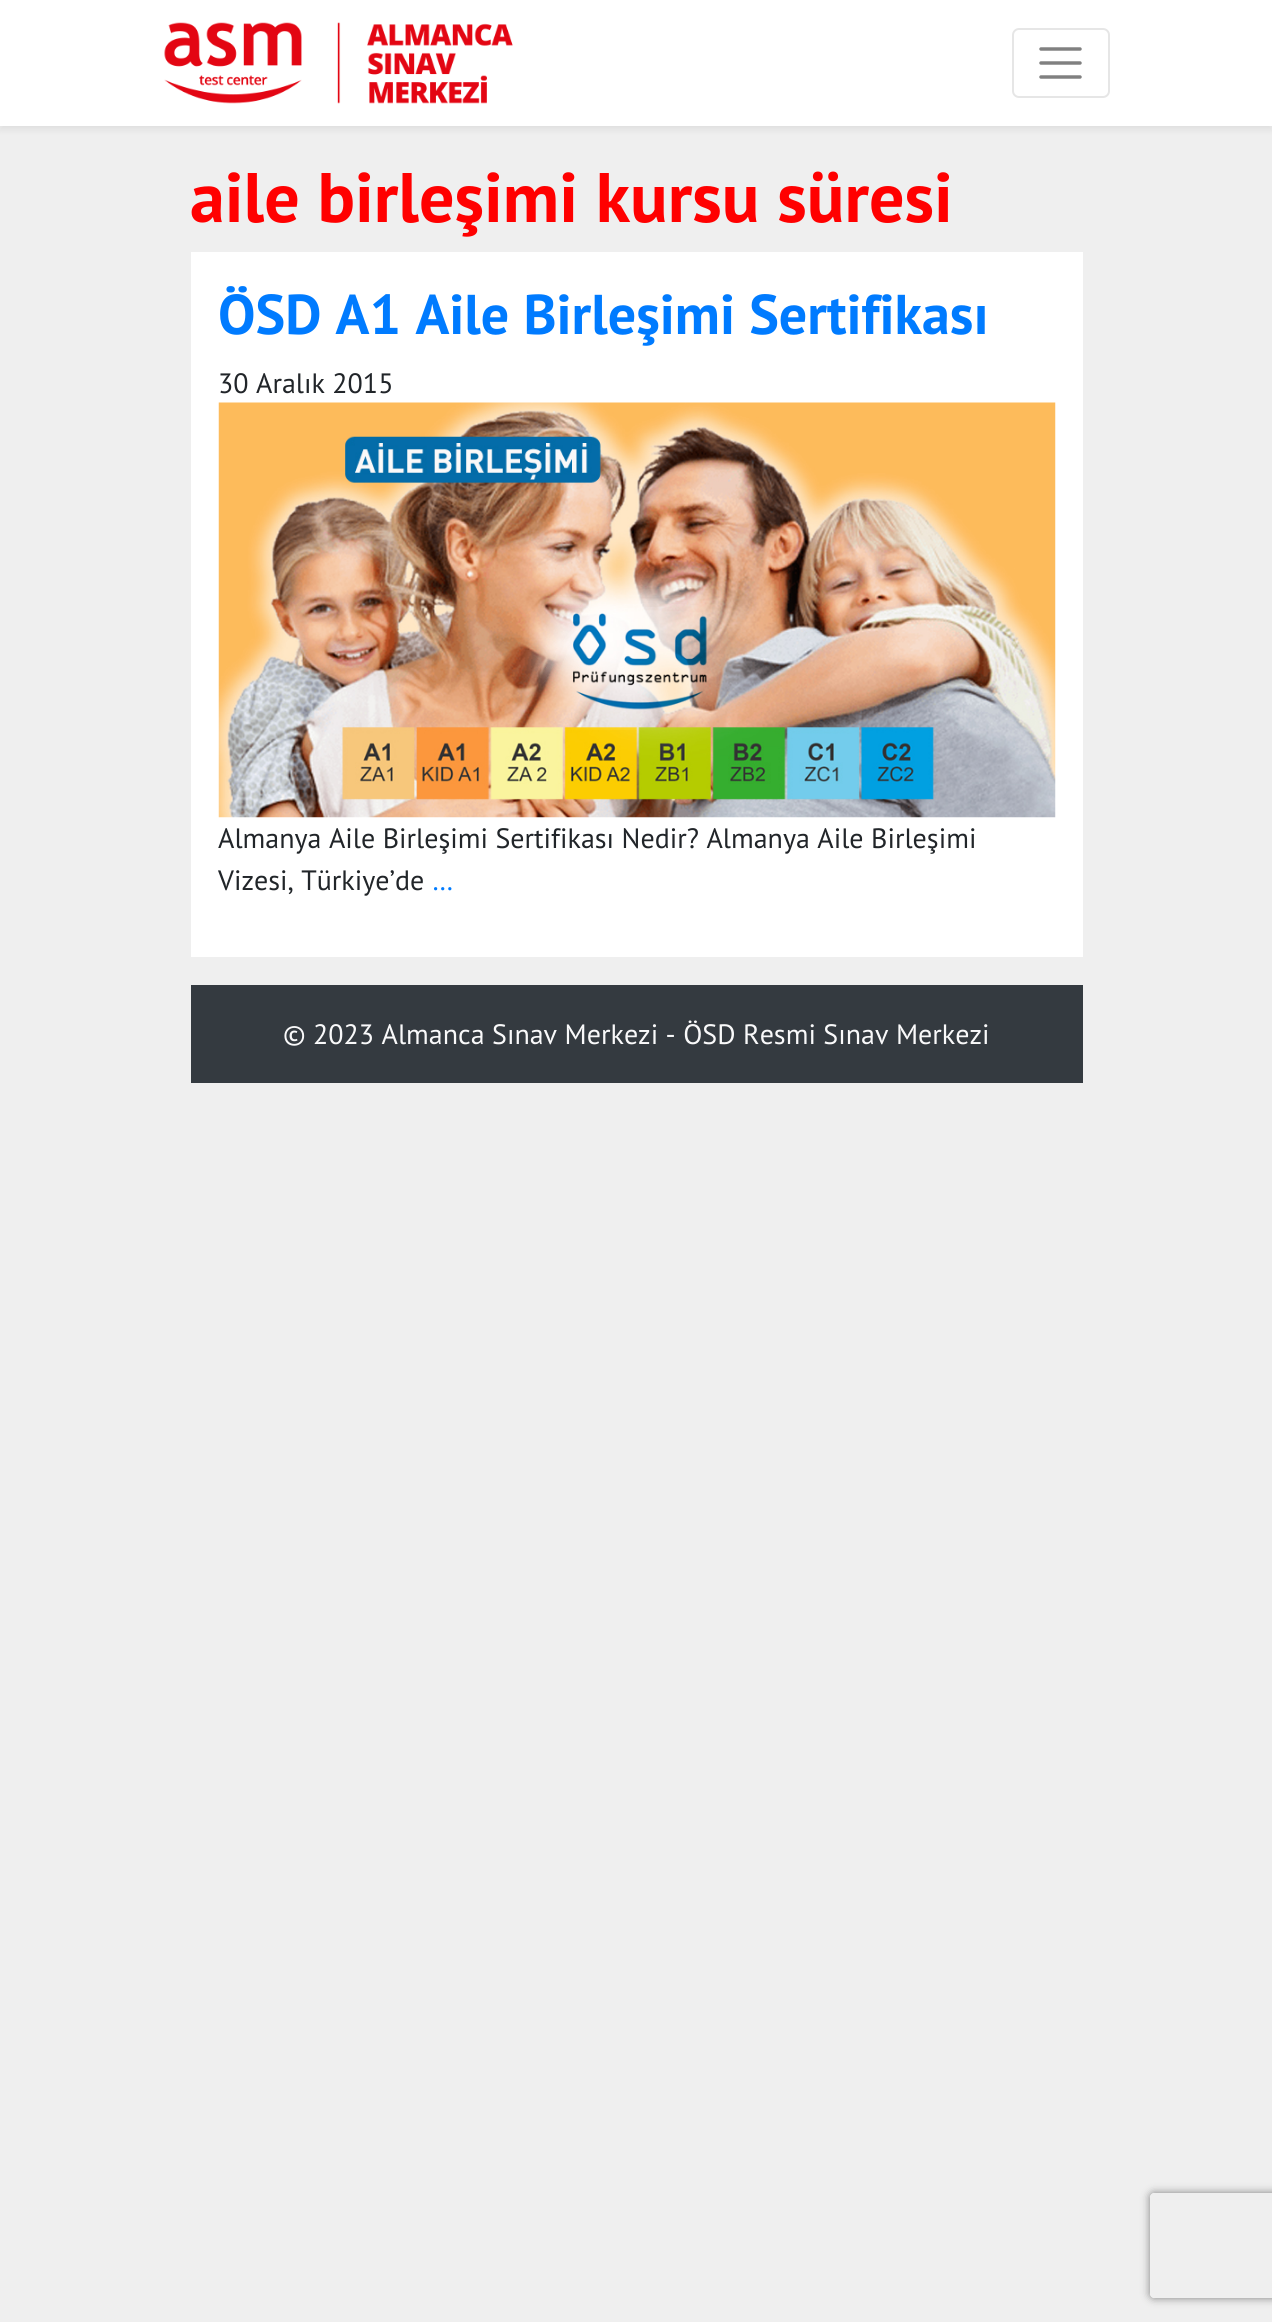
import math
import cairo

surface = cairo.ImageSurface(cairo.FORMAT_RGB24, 1272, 2322)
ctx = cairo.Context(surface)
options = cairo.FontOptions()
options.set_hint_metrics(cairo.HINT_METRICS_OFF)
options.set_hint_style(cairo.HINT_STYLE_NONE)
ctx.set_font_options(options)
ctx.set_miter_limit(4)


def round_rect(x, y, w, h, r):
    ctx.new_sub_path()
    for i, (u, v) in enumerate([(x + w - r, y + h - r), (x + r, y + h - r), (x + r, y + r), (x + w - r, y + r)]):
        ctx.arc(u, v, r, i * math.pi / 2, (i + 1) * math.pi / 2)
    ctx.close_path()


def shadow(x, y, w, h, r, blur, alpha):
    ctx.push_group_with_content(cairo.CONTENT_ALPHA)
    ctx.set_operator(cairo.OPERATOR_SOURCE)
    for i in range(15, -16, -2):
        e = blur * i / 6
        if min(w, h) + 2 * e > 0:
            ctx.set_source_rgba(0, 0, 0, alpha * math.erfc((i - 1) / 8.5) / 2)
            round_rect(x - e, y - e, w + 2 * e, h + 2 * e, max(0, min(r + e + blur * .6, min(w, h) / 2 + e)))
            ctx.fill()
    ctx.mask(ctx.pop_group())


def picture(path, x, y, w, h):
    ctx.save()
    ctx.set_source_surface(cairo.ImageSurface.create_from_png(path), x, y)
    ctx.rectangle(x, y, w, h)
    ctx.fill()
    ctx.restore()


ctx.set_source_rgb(0.937, 0.937, 0.937)
ctx.paint()
ctx.set_source_rgb(0, 0, 0)
shadow(0, 4, 1272, 126, 0, 3.5, 0.07)
ctx.set_source_rgb(1, 1, 1)
ctx.rectangle(0, 0, 1272, 126)
ctx.fill()
picture("img1.png", 164, 22, 349, 82)
round_rect(1013, 29, 96, 68, 6)
ctx.set_source_rgb(0.902, 0.902, 0.902)
ctx.stroke()
ctx.new_path()
ctx.move_to(1041, 49)
ctx.line_to(1080, 49)
ctx.move_to(1041, 63)
ctx.line_to(1080, 63)
ctx.move_to(1041, 77)
ctx.line_to(1080, 77)
ctx.set_source_rgb(0.502, 0.502, 0.502)
ctx.set_line_width(3.5)
ctx.set_line_cap(cairo.LINE_CAP_ROUND)
ctx.stroke()
ctx.select_font_face("PT Sans", cairo.FONT_SLANT_NORMAL, cairo.FONT_WEIGHT_BOLD)
ctx.set_font_size(70)
ctx.set_source_rgb(1, 0, 0)
ctx.move_to(190, 222)
ctx.show_text("aile birleşimi kursu süresi")
ctx.set_source_rgb(1, 1, 1)
ctx.rectangle(191, 252, 892, 705)
ctx.fill()
ctx.set_font_size(56)
ctx.set_source_rgb(0, 0.482, 1)
ctx.move_to(218, 334)
ctx.show_text("ÖSD A1 Aile Birleşimi Sertifikası")
ctx.select_font_face("PT Sans")
ctx.set_font_size(28)
ctx.set_source_rgb(0.129, 0.145, 0.161)
ctx.move_to(218, 393)
ctx.show_text("30 Aralık 2015")
picture("img2.png", 218, 402, 838, 416)
ctx.move_to(218, 848)
ctx.show_text("Almanya Aile Birleşimi Sertifikası Nedir? Almanya Aile Birleşimi")
ctx.move_to(218, 890)
ctx.show_text("Vizesi, Türkiye’de")
ctx.set_source_rgb(0, 0.482, 1)
ctx.move_to(432, 890)
ctx.show_text("…")
ctx.set_source_rgb(0.204, 0.227, 0.251)
ctx.rectangle(191, 985, 892, 98)
ctx.fill()
ctx.set_source_rgb(0.973, 0.976, 0.98)
ctx.move_to(283, 1044)
ctx.show_text("© 2023 Almanca Sınav Merkezi - ÖSD Resmi Sınav Merkezi")
ctx.save()
ctx.set_fill_rule(cairo.FILL_RULE_EVEN_ODD)
ctx.new_path()
ctx.move_to(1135, 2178)
ctx.line_to(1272, 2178)
ctx.line_to(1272, 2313)
ctx.line_to(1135, 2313)
ctx.close_path()
ctx.move_to(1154, 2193)
ctx.line_to(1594, 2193)
ctx.curve_to(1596, 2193, 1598, 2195, 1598, 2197)
ctx.line_to(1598, 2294)
ctx.curve_to(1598, 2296, 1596, 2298, 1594, 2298)
ctx.line_to(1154, 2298)
ctx.curve_to(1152, 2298, 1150, 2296, 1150, 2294)
ctx.line_to(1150, 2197)
ctx.curve_to(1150, 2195, 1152, 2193, 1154, 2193)
ctx.close_path()
ctx.clip()
ctx.set_source_rgb(0.502, 0.502, 0.502)
shadow(1150, 2193, 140, 105, 4, 4.5, 1)
ctx.restore()
surface.write_to_png("page.png")
